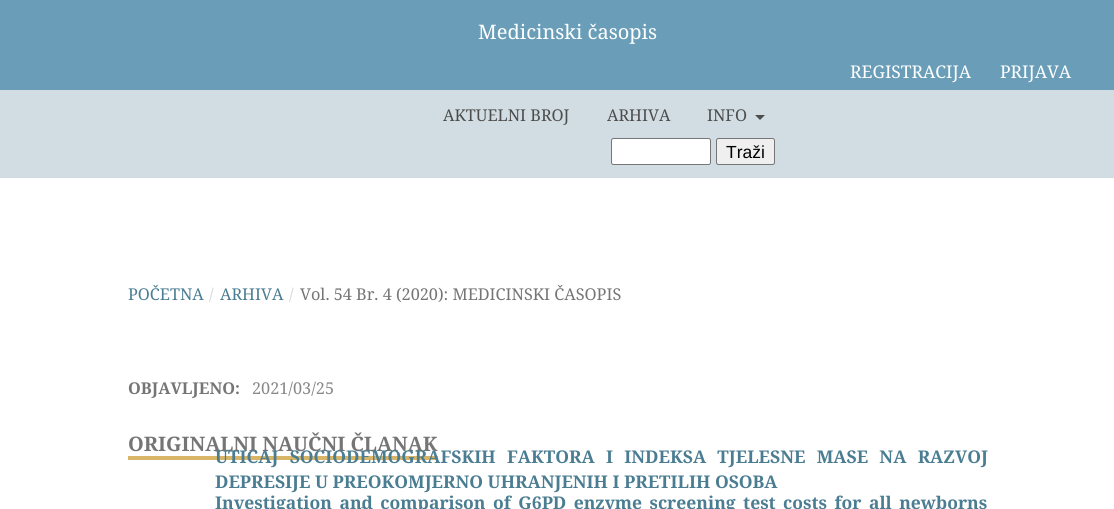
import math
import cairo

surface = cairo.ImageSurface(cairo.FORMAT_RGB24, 1114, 509)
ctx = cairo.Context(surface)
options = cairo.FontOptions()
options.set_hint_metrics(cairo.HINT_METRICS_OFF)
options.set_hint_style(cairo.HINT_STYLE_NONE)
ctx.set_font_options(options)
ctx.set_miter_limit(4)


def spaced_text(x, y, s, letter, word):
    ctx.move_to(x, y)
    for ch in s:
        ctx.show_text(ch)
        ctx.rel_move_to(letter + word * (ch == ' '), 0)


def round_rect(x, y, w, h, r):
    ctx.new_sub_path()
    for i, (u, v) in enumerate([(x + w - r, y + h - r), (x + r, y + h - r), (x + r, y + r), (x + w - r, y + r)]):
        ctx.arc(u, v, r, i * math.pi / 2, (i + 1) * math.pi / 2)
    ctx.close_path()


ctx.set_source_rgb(1, 1, 1)
ctx.paint()
ctx.set_source_rgb(0.416, 0.62, 0.722)
ctx.rectangle(0, 0, 1114, 90)
ctx.fill()
ctx.select_font_face("Noto Serif")
ctx.set_font_size(20)
ctx.set_source_rgb(1, 1, 1)
ctx.move_to(478, 39)
ctx.show_text("Medicinski časopis")
ctx.set_font_size(17.5)
ctx.move_to(850, 78)
ctx.show_text("REGISTRACIJA")
ctx.move_to(1000, 78)
ctx.show_text("PRIJAVA")
ctx.set_source_rgb(0.82, 0.867, 0.886)
ctx.rectangle(0, 90, 1114, 88)
ctx.fill()
ctx.set_font_size(16.25)
ctx.set_source_rgb(0.302, 0.302, 0.302)
ctx.move_to(443, 121)
ctx.show_text("AKTUELNI BROJ")
ctx.move_to(607, 121)
ctx.show_text("ARHIVA")
ctx.move_to(707, 121)
ctx.show_text("INFO")
ctx.new_path()
ctx.move_to(755, 115)
ctx.line_to(765, 115)
ctx.line_to(760, 120)
ctx.close_path()
ctx.fill()
ctx.set_source_rgb(1, 1, 1)
round_rect(611.5, 138.5, 99, 26, 2)
ctx.fill_preserve()
ctx.set_source_rgb(0.463, 0.463, 0.463)
ctx.set_line_width(1)
ctx.stroke()
ctx.set_source_rgb(0.937, 0.937, 0.937)
round_rect(716.5, 138.5, 58, 26, 2)
ctx.fill_preserve()
ctx.set_source_rgb(0.463, 0.463, 0.463)
ctx.stroke()
ctx.select_font_face("Liberation Sans")
ctx.set_font_size(17.5)
ctx.set_source_rgb(0, 0, 0)
ctx.move_to(726, 158)
ctx.show_text("Traži")
ctx.select_font_face("Noto Serif")
ctx.set_font_size(16.25)
ctx.set_source_rgb(0.294, 0.49, 0.573)
ctx.move_to(128, 300)
ctx.show_text("POČETNA")
ctx.set_source_rgb(0.839, 0.839, 0.839)
ctx.move_to(209, 300)
ctx.show_text("/")
ctx.set_source_rgb(0.294, 0.49, 0.573)
ctx.move_to(220, 300)
ctx.show_text("ARHIVA")
ctx.set_source_rgb(0.839, 0.839, 0.839)
ctx.move_to(289, 300)
ctx.show_text("/")
ctx.set_source_rgb(0.459, 0.459, 0.459)
ctx.move_to(300, 300)
ctx.show_text("Vol. 54 Br. 4 (2020): MEDICINSKI ČASOPIS")
ctx.select_font_face("Noto Serif", cairo.FONT_SLANT_NORMAL, cairo.FONT_WEIGHT_BOLD)
ctx.move_to(128, 394)
ctx.show_text("OBJAVLJENO:")
ctx.select_font_face("Noto Serif")
ctx.set_source_rgb(0.533, 0.533, 0.533)
ctx.move_to(252, 394)
ctx.show_text("2021/03/25")
ctx.set_source_rgb(0.851, 0.71, 0.408)
ctx.rectangle(128, 456, 310, 4)
ctx.fill()
ctx.select_font_face("Noto Serif", cairo.FONT_SLANT_NORMAL, cairo.FONT_WEIGHT_BOLD)
ctx.set_font_size(20)
ctx.set_source_rgb(0.459, 0.459, 0.459)
ctx.move_to(128, 451)
ctx.show_text("ORIGINALNI NAUČNI ČLANAK")
ctx.set_font_size(17.5)
ctx.set_source_rgb(0.294, 0.49, 0.573)
spaced_text(215, 463, "UTICAJ SOCIODEMOGRAFSKIH FAKTORA I INDEKSA TJELESNE MASE NA RAZVOJ", 0, 6.75)
ctx.move_to(215, 488)
ctx.show_text("DEPRESIJE U PREOKOMJERNO UHRANJENIH I PRETILIH OSOBA")
ctx.select_font_face("Noto Serif")
ctx.set_font_size(16.25)
ctx.set_source_rgb(0.533, 0.533, 0.533)
ctx.move_to(361, 512)
ctx.show_text("-")
ctx.select_font_face("Noto Serif", cairo.FONT_SLANT_NORMAL, cairo.FONT_WEIGHT_BOLD)
ctx.set_font_size(17.5)
ctx.set_source_rgb(0.294, 0.49, 0.573)
spaced_text(215, 509, "Investigation and comparison of G6PD enzyme screening test costs for all newborns", 0, 2.9)
surface.write_to_png("page.png")
